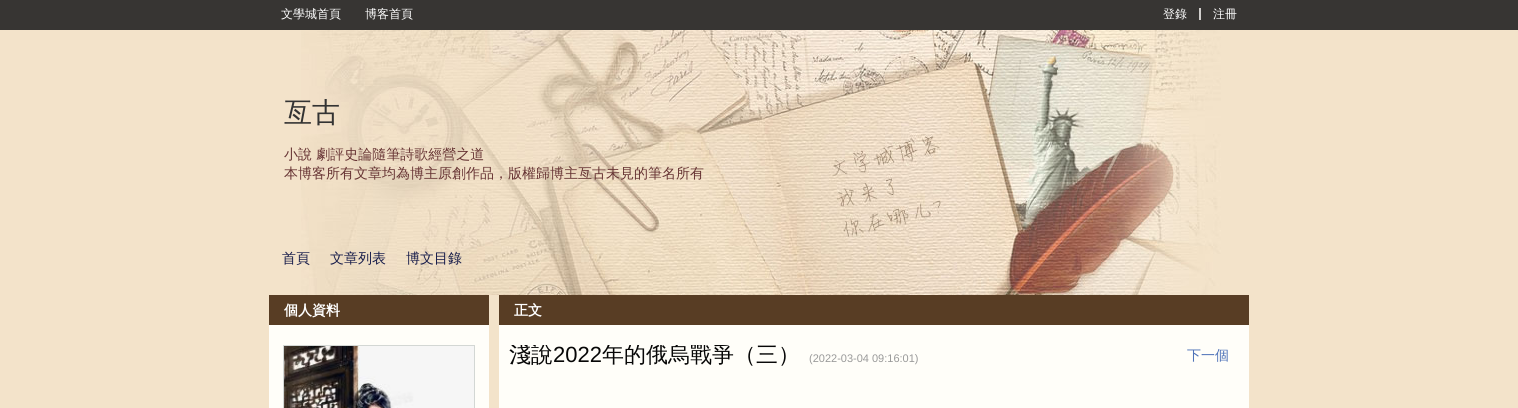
import math
import cairo

surface = cairo.ImageSurface(cairo.FORMAT_RGB24, 1518, 408)
ctx = cairo.Context(surface)
options = cairo.FontOptions()
options.set_hint_metrics(cairo.HINT_METRICS_OFF)
options.set_hint_style(cairo.HINT_STYLE_NONE)
ctx.set_font_options(options)
ctx.set_miter_limit(4)


def picture(path, x, y, w, h):
    ctx.save()
    ctx.set_source_surface(cairo.ImageSurface.create_from_png(path), x, y)
    ctx.rectangle(x, y, w, h)
    ctx.fill()
    ctx.restore()


ctx.set_source_rgb(0.953, 0.89, 0.792)
ctx.paint()
ctx.set_source_rgb(0.216, 0.208, 0.2)
ctx.rectangle(0, 0, 1518, 30)
ctx.fill()
ctx.select_font_face("WenQuanYi Zen Hei Medium")
ctx.set_font_size(12)
ctx.set_source_rgb(1, 1, 1)
ctx.move_to(281, 18)
ctx.show_text("文學城首頁")
ctx.move_to(365, 18)
ctx.show_text("博客首頁")
ctx.move_to(1163, 18)
ctx.show_text("登錄")
ctx.set_source_rgb(0.816, 0.808, 0.8)
ctx.rectangle(1199, 8, 2, 12)
ctx.fill()
ctx.set_source_rgb(1, 1, 1)
ctx.move_to(1213, 18)
ctx.show_text("注冊")
picture("img1.png", 301, 30, 920, 265)
ctx.set_font_size(28)
ctx.set_source_rgb(0.2, 0.2, 0.2)
ctx.move_to(284, 122)
ctx.show_text("亙古")
ctx.set_font_size(14)
ctx.set_source_rgb(0.4, 0.2, 0.2)
ctx.move_to(284, 159)
ctx.show_text("小說 劇評史論隨筆詩歌經營之道")
ctx.move_to(284, 178)
ctx.show_text("本博客所有文章均為博主原創作品，版權歸博主亙古未見的筆名所有")
ctx.set_source_rgb(0.094, 0.114, 0.294)
ctx.move_to(282, 263)
ctx.show_text("首頁")
ctx.move_to(330, 263)
ctx.show_text("文章列表")
ctx.move_to(406, 263)
ctx.show_text("博文目錄")
ctx.set_source_rgb(0.345, 0.239, 0.141)
ctx.rectangle(269, 295, 220, 30)
ctx.fill()
ctx.select_font_face("WenQuanYi Zen Hei", cairo.FONT_SLANT_NORMAL, cairo.FONT_WEIGHT_BOLD)
ctx.set_source_rgb(1, 1, 1)
ctx.move_to(284, 315)
ctx.show_text("個人資料")
ctx.set_source_rgb(1, 0.996, 0.976)
ctx.rectangle(269, 325, 220, 83)
ctx.fill()
ctx.rectangle(283.5, 345.5, 191, 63)
ctx.set_source_rgb(0.827, 0.843, 0.831)
ctx.set_line_width(1)
ctx.stroke()
picture("img2.png", 284, 346, 190, 62)
ctx.set_source_rgb(0.345, 0.239, 0.141)
ctx.rectangle(499, 295, 750, 30)
ctx.fill()
ctx.set_source_rgb(1, 1, 1)
ctx.move_to(514, 315)
ctx.show_text("正文")
ctx.set_source_rgb(1, 0.996, 0.976)
ctx.rectangle(499, 325, 750, 83)
ctx.fill()
ctx.save()
ctx.rectangle(509, 345, 720, 23)
ctx.clip()
ctx.select_font_face("WenQuanYi Zen Hei Medium")
ctx.set_font_size(22)
ctx.set_source_rgb(0.031, 0.031, 0.031)
ctx.move_to(509, 362)
ctx.show_text("淺說")
ctx.restore()
ctx.select_font_face("Liberation Sans")
ctx.set_font_size(22)
ctx.set_source_rgb(0.031, 0.031, 0.031)
ctx.move_to(553, 362)
ctx.show_text("2022")
ctx.save()
ctx.rectangle(509, 345, 720, 23)
ctx.clip()
ctx.select_font_face("WenQuanYi Zen Hei Medium")
ctx.move_to(602, 362)
ctx.show_text("年的俄烏戰爭（三）")
ctx.restore()
ctx.set_font_size(11)
ctx.set_source_rgb(0.6, 0.6, 0.6)
ctx.move_to(809, 362)
ctx.show_text("(2022-03-04 09:16:01)")
ctx.select_font_face("WenQuanYi Zen Hei Medium")
ctx.set_font_size(14)
ctx.set_source_rgb(0.306, 0.447, 0.722)
ctx.move_to(1187, 360)
ctx.show_text("下一個")
surface.write_to_png("page.png")
